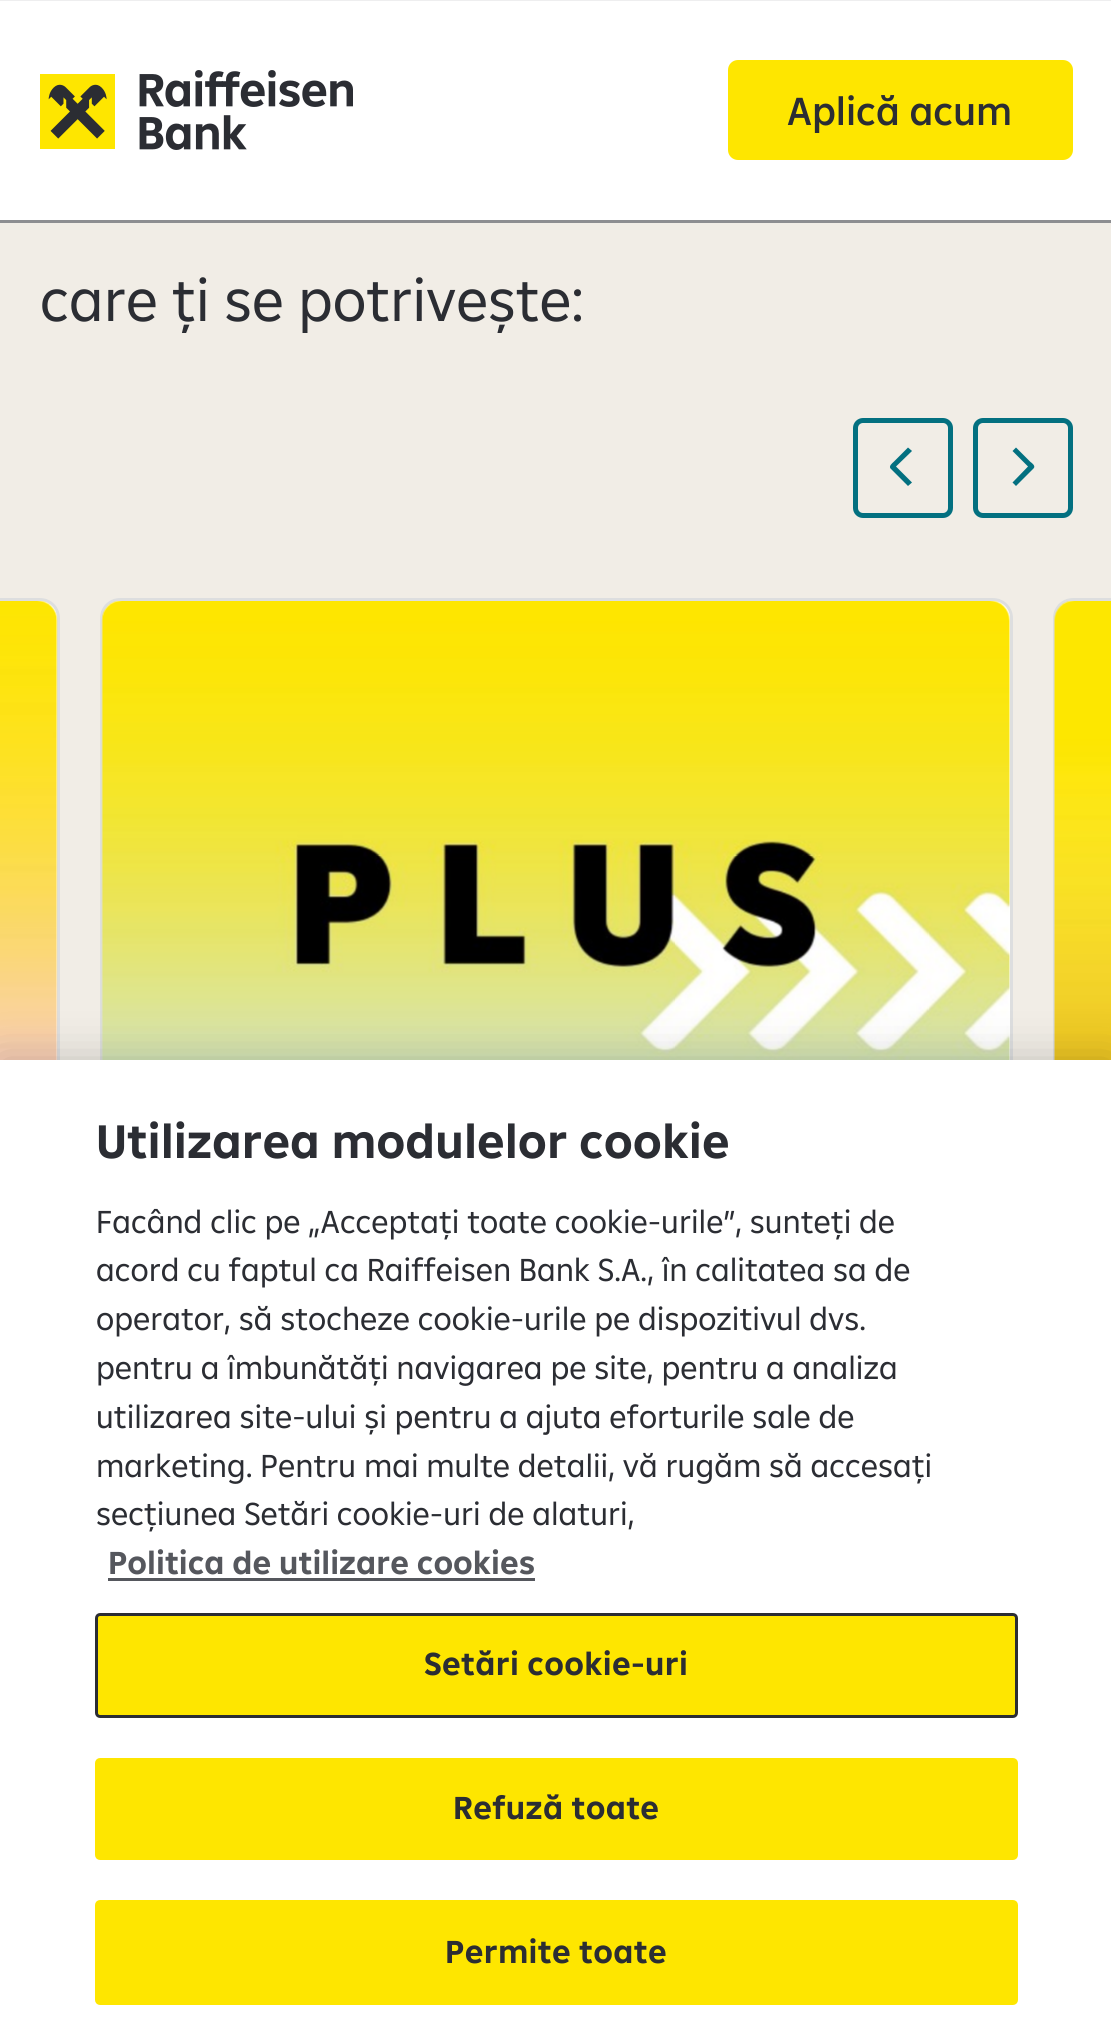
import math
import cairo

surface = cairo.ImageSurface(cairo.FORMAT_RGB24, 1111, 2044)
ctx = cairo.Context(surface)
options = cairo.FontOptions()
options.set_hint_metrics(cairo.HINT_METRICS_OFF)
options.set_hint_style(cairo.HINT_STYLE_NONE)
ctx.set_font_options(options)
ctx.set_miter_limit(4)


def spaced_text(x, y, s, letter, word):
    ctx.move_to(x, y)
    for ch in s:
        ctx.show_text(ch)
        ctx.rel_move_to(letter + word * (ch == ' '), 0)


def round_rect(x, y, w, h, r):
    ctx.new_sub_path()
    for i, (u, v) in enumerate([(x + w - r, y + h - r), (x + r, y + h - r), (x + r, y + r), (x + w - r, y + r)]):
        ctx.arc(u, v, r, i * math.pi / 2, (i + 1) * math.pi / 2)
    ctx.close_path()


def shadow(x, y, w, h, r, blur, alpha):
    ctx.push_group_with_content(cairo.CONTENT_ALPHA)
    ctx.set_operator(cairo.OPERATOR_SOURCE)
    for i in range(15, -16, -2):
        e = blur * i / 6
        if min(w, h) + 2 * e > 0:
            ctx.set_source_rgba(0, 0, 0, alpha * math.erfc((i - 1) / 8.5) / 2)
            round_rect(x - e, y - e, w + 2 * e, h + 2 * e, max(0, min(r + e + blur * .6, min(w, h) / 2 + e)))
            ctx.fill()
    ctx.mask(ctx.pop_group())


def picture(path, x, y, w, h):
    ctx.save()
    ctx.set_source_surface(cairo.ImageSurface.create_from_png(path), x, y)
    ctx.rectangle(x, y, w, h)
    ctx.fill()
    ctx.restore()


ctx.set_source_rgb(0.945, 0.929, 0.902)
ctx.paint()
ctx.set_source_rgb(1, 1, 1)
ctx.rectangle(0, 1, 1111, 219)
ctx.fill()
ctx.set_source_rgb(0.553, 0.557, 0.569)
ctx.rectangle(0, 220, 1111, 3)
ctx.fill()
ctx.set_source_rgb(0.933, 0.933, 0.937)
ctx.rectangle(0, 0, 1111, 1)
ctx.fill()
picture("img1.png", 40, 70, 313, 80)
ctx.set_source_rgb(0.996, 0.902, 0)
round_rect(730.5, 62.5, 340, 95, 7.5)
ctx.fill_preserve()
ctx.set_line_width(5)
ctx.stroke()
ctx.select_font_face("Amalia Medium")
ctx.set_font_size(40)
ctx.set_source_rgb(0.169, 0.176, 0.2)
ctx.move_to(787, 125)
ctx.show_text("Aplică acum")
ctx.select_font_face("Amalia")
ctx.set_font_size(60)
ctx.move_to(40, 321)
ctx.show_text("care ți se potrivește:")
round_rect(855.5, 420.5, 95, 95, 7.5)
ctx.set_source_rgb(0.012, 0.439, 0.502)
ctx.stroke()
ctx.new_path()
ctx.move_to(890.5, 468.5)
ctx.line_to(908, 486)
ctx.line_to(912, 482.5)
ctx.line_to(896, 466.5)
ctx.line_to(912, 451)
ctx.line_to(908, 447.5)
ctx.line_to(893.5, 462)
ctx.curve_to(892.5, 463, 888.5, 466, 890.5, 468.5)
ctx.close_path()
ctx.fill()
round_rect(975.5, 420.5, 95, 95, 7.5)
ctx.stroke()
ctx.new_path()
ctx.move_to(1033.5, 468.5)
ctx.line_to(1016, 486)
ctx.line_to(1012.5, 482.5)
ctx.line_to(1028, 466.5)
ctx.line_to(1012.5, 451)
ctx.line_to(1016, 447.5)
ctx.line_to(1030.5, 462)
ctx.curve_to(1032, 463, 1036, 466, 1033.5, 468.5)
ctx.close_path()
ctx.fill()
ctx.set_source_rgb(1, 1, 1)
ctx.new_path()
ctx.move_to(0, 598)
ctx.line_to(40, 598)
ctx.curve_to(51, 598, 60, 607, 60, 618)
ctx.line_to(60, 2044)
ctx.curve_to(60, 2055, 51, 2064, 40, 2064)
ctx.line_to(0, 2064)
ctx.close_path()
ctx.fill()
round_rect(-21.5, 599.5, 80, 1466, 18.5)
ctx.set_source_rgba(0.169, 0.176, 0.2, 0.16)
ctx.set_line_width(3)
ctx.stroke()
picture("img2.png", 0, 601, 58, 459)
ctx.set_source_rgb(1, 1, 1)
round_rect(100, 598, 913, 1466, 20)
ctx.fill()
round_rect(101.5, 599.5, 910, 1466, 18.5)
ctx.set_source_rgba(0.169, 0.176, 0.2, 0.16)
ctx.stroke()
picture("img3.png", 101, 601, 909, 459)
ctx.set_source_rgb(1, 1, 1)
ctx.new_path()
ctx.move_to(1073, 598)
ctx.line_to(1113, 598)
ctx.line_to(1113, 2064)
ctx.line_to(1073, 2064)
ctx.curve_to(1062, 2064, 1053, 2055, 1053, 2044)
ctx.line_to(1053, 618)
ctx.curve_to(1053, 607, 1062, 598, 1073, 598)
ctx.close_path()
ctx.fill()
round_rect(1054.5, 599.5, 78, 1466, 18.5)
ctx.set_source_rgba(0.169, 0.176, 0.2, 0.16)
ctx.stroke()
picture("img4.png", 1054, 601, 57, 459)
ctx.set_source_rgb(0, 0, 0)
shadow(0, 1060, 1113, 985, 0, 22.5, 0.2)
ctx.set_source_rgb(1, 1, 1)
ctx.rectangle(0, 1060, 1111, 984)
ctx.fill()
ctx.select_font_face("Amalia", cairo.FONT_SLANT_NORMAL, cairo.FONT_WEIGHT_BOLD)
ctx.set_font_size(48)
ctx.set_source_rgb(0.169, 0.176, 0.2)
ctx.move_to(96, 1158)
ctx.show_text("Utilizarea modulelor cookie")
ctx.select_font_face("Amalia")
ctx.set_font_size(32.5)
ctx.move_to(96, 1233)
ctx.show_text("Facând clic pe „Acceptați toate cookie-urile”, sunteți de")
ctx.move_to(96, 1281)
ctx.show_text("acord cu faptul ca Raiffeisen Bank S.A., în calitatea sa de")
ctx.move_to(96, 1330)
ctx.show_text("operator, să stocheze cookie-urile pe dispozitivul dvs.")
ctx.move_to(96, 1379)
ctx.show_text("pentru a îmbunătăți navigarea pe site, pentru a analiza")
ctx.move_to(96, 1428)
ctx.show_text("utilizarea site-ului și pentru a ajuta eforturile sale de")
ctx.move_to(96, 1477)
ctx.show_text("marketing. Pentru mai multe detalii, vă rugăm să accesați")
ctx.move_to(96, 1525)
ctx.show_text("secțiunea Setări cookie-uri de alaturi,")
ctx.select_font_face("Amalia", cairo.FONT_SLANT_NORMAL, cairo.FONT_WEIGHT_BOLD)
ctx.set_source_rgb(0.333, 0.341, 0.365)
ctx.move_to(108, 1574)
ctx.show_text("Politica de utilizare cookies")
ctx.rectangle(108, 1578, 427, 3)
ctx.fill()
ctx.set_source_rgb(0.996, 0.902, 0)
round_rect(96.5, 1614.5, 920, 102, 3.5)
ctx.fill_preserve()
ctx.set_source_rgb(0.169, 0.176, 0.2)
ctx.stroke()
spaced_text(424, 1675, "Setări cookie-uri", 0.3, 0)
ctx.set_source_rgb(0.996, 0.902, 0)
round_rect(96.5, 1759.5, 920, 99, 3.5)
ctx.fill_preserve()
ctx.stroke()
ctx.set_source_rgb(0.169, 0.176, 0.2)
spaced_text(453, 1819, "Refuză toate", 0.3, 0)
ctx.set_source_rgb(0.996, 0.902, 0)
round_rect(96.5, 1901.5, 920, 102, 3.5)
ctx.fill_preserve()
ctx.stroke()
ctx.set_source_rgb(0.169, 0.176, 0.2)
spaced_text(445, 1963, "Permite toate", 0.3, 0)
surface.write_to_png("page.png")
